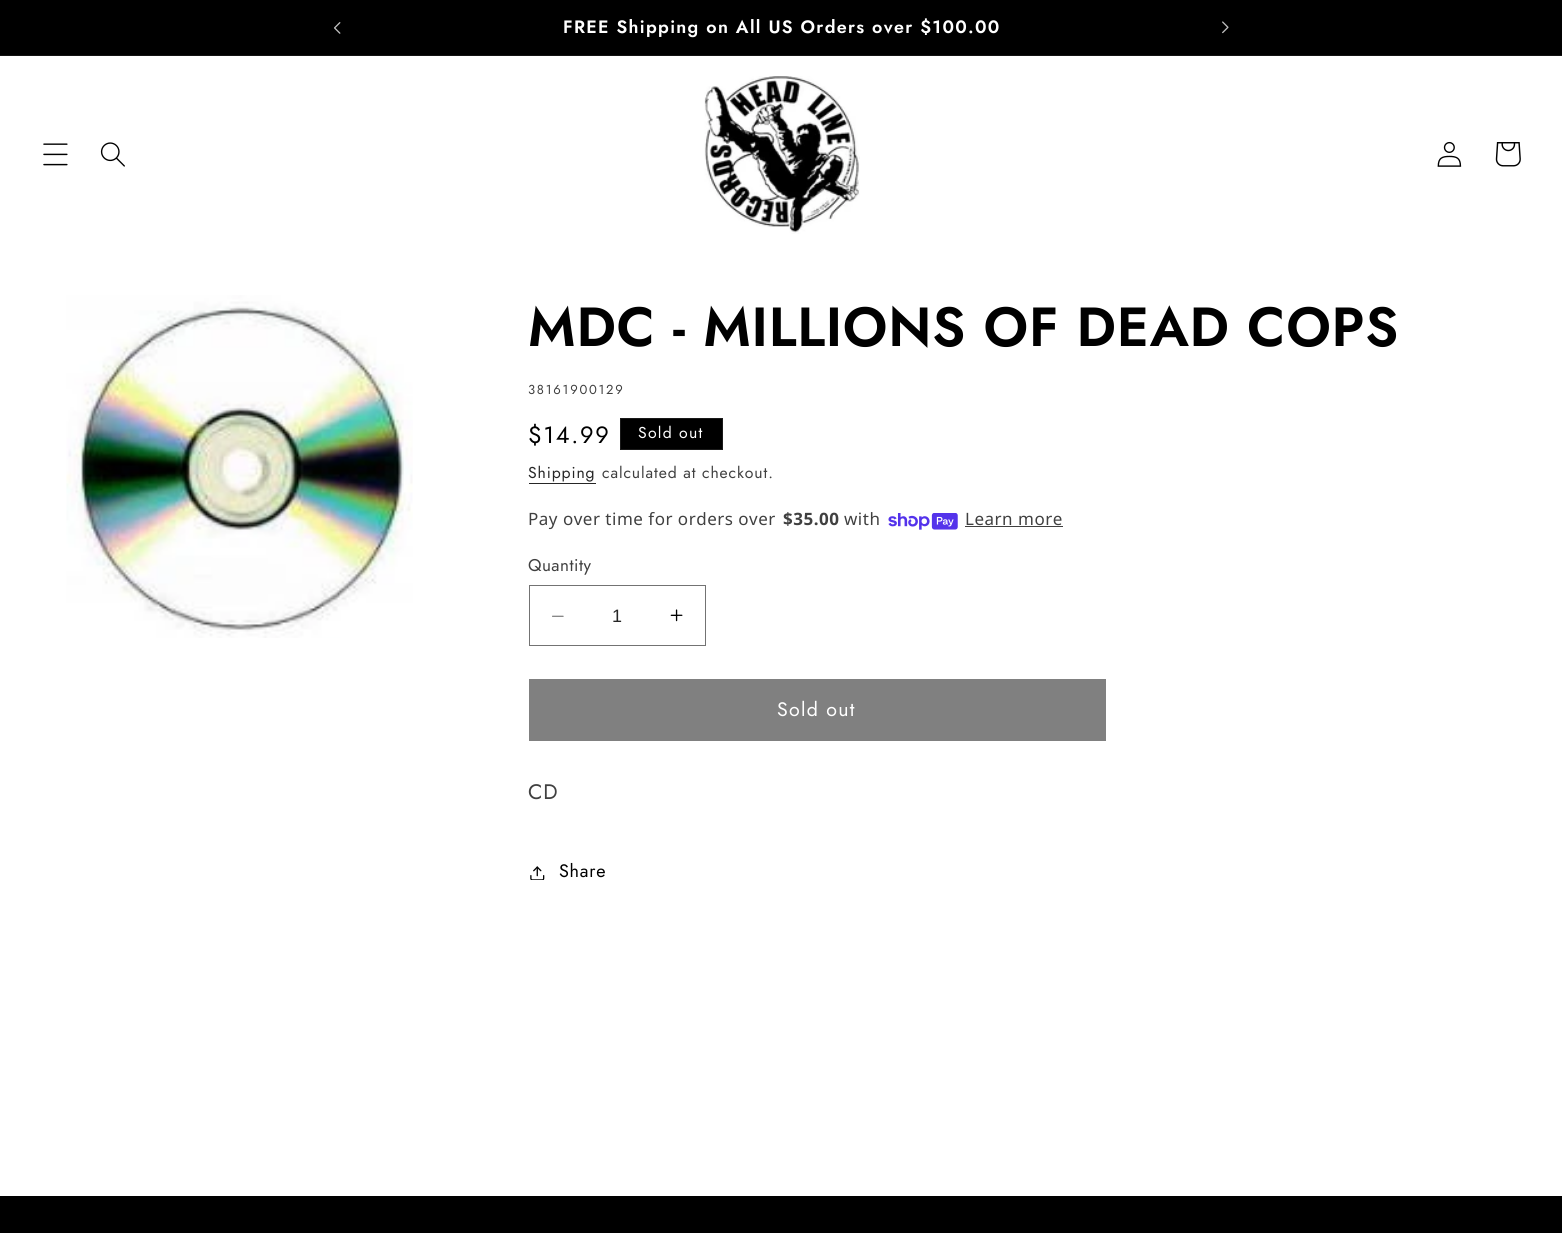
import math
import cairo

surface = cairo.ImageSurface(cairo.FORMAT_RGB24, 1562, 1233)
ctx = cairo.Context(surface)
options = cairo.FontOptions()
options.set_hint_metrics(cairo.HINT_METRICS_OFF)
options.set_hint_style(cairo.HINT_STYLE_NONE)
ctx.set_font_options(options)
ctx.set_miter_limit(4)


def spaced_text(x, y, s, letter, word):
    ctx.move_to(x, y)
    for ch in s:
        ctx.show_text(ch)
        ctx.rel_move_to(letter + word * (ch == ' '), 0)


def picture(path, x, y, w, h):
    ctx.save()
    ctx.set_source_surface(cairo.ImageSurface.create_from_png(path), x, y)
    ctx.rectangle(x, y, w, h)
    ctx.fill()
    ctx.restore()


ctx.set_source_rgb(1, 1, 1)
ctx.paint()
ctx.set_source_rgb(0, 0, 0)
ctx.rectangle(0, 0, 1562, 55)
ctx.fill()
ctx.set_source_rgb(0.078, 0.078, 0.078)
ctx.rectangle(0, 55, 1562, 1)
ctx.fill()
picture("img1.png", 334, 22, 7, 12)
ctx.select_font_face("Jost SemiBold")
ctx.set_font_size(17.9)
ctx.set_source_rgb(1, 1, 1)
spaced_text(563, 33, "FREE Shipping on All US Orders over $100.00", 1.3, 0)
picture("img2.png", 1222, 21, 7, 13)
picture("img3.png", 43, 143, 25, 23)
picture("img4.png", 100, 142, 25, 25)
picture("img5.png", 704, 76, 156, 158)
picture("img6.png", 1437, 141, 25, 26)
picture("img7.png", 1495, 142, 26, 25)
picture("img8.png", 66, 295, 347, 343)
ctx.set_font_size(55)
ctx.set_source_rgb(0, 0, 0)
spaced_text(528, 346, "MDC - MILLIONS OF DEAD COPS", 0.8, 0)
ctx.select_font_face("Jost")
ctx.set_font_size(13)
ctx.set_source_rgb(0.251, 0.251, 0.251)
spaced_text(528, 394, "38161900129", 1.75, 0)
ctx.set_font_size(23.5)
ctx.set_source_rgb(0, 0, 0)
spaced_text(528, 443, "$14.99", 1.75, 0)
ctx.rectangle(620.5, 418.5, 102, 31)
ctx.fill_preserve()
ctx.set_source_rgb(0.102, 0.102, 0.102)
ctx.set_line_width(1)
ctx.stroke()
ctx.set_font_size(15.75)
ctx.set_source_rgb(1, 1, 1)
spaced_text(638, 438, "Sold out", 1.3, 0)
ctx.set_source_rgb(0.149, 0.149, 0.149)
spaced_text(528, 478, "Shipping", 0.9, 0)
ctx.rectangle(529, 483, 67, 1)
ctx.fill()
ctx.set_source_rgb(0.251, 0.251, 0.251)
spaced_text(602, 478, "calculated at checkout.", 0.9, 0)
ctx.select_font_face("Noto Sans")
ctx.set_font_size(17)
spaced_text(528, 525, "Pay over time for orders over", 0.5, 0)
ctx.select_font_face("Noto Sans", cairo.FONT_SLANT_NORMAL, cairo.FONT_WEIGHT_BOLD)
spaced_text(783, 525, "$35.00", 0.5, 0)
ctx.select_font_face("Noto Sans")
spaced_text(844, 525, "with", 0.5, 0)
picture("img9.png", 888, 513, 70, 17)
spaced_text(965, 525, "Learn more", 0.5, 0)
ctx.rectangle(965, 526, 98, 1)
ctx.fill()
ctx.select_font_face("Jost")
spaced_text(528, 571, "Quantity", 0.5, 0)
picture("img10.png", 552, 615, 12, 2)
picture("img11.png", 670, 609, 13, 13)
ctx.rectangle(529.5, 585.5, 176, 60)
ctx.set_source_rgb(0.451, 0.451, 0.451)
ctx.stroke()
ctx.select_font_face("Liberation Sans")
ctx.set_font_size(18)
ctx.set_source_rgb(0.149, 0.149, 0.149)
ctx.move_to(612, 622)
ctx.show_text("1")
ctx.set_source_rgb(0.502, 0.502, 0.502)
ctx.rectangle(529, 679, 577, 62)
ctx.fill()
ctx.select_font_face("Jost")
ctx.set_font_size(19.5)
ctx.set_source_rgb(1, 1, 1)
spaced_text(777, 716, "Sold out", 1.3, 0)
ctx.set_font_size(21)
ctx.set_source_rgb(0.251, 0.251, 0.251)
spaced_text(528, 799, "CD", 0.75, 0)
picture("img12.png", 530, 866, 15, 14)
ctx.set_font_size(18)
ctx.set_source_rgb(0, 0, 0)
spaced_text(559, 877, "Share", 0.75, 0)
ctx.rectangle(0, 1196, 1562, 37)
ctx.fill()
surface.write_to_png("page.png")
